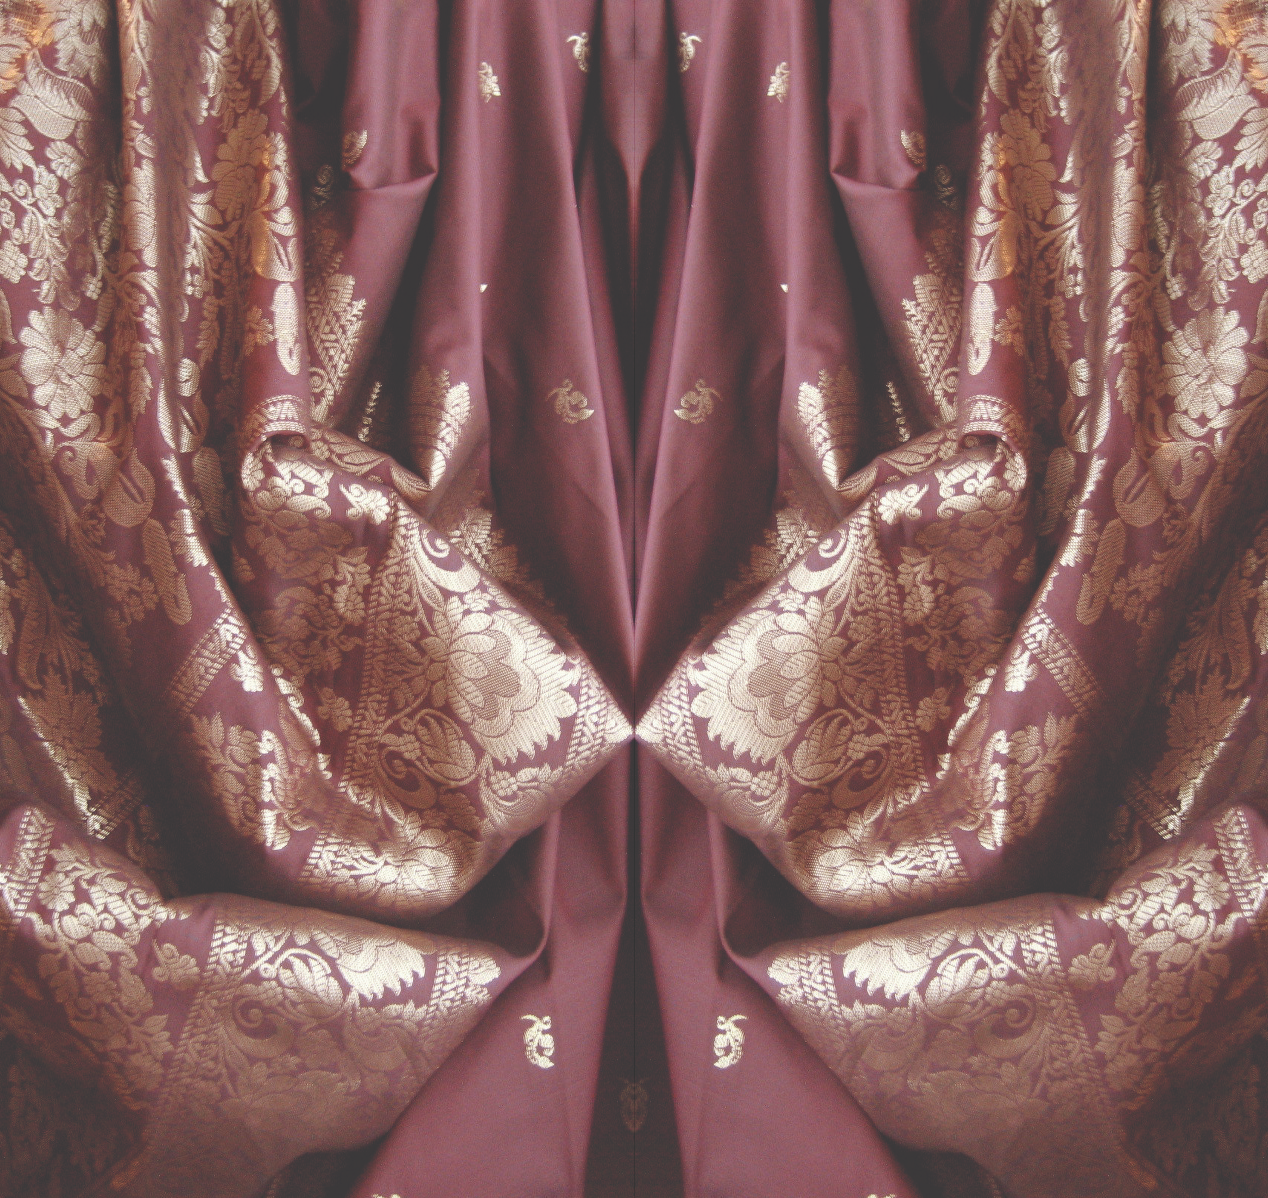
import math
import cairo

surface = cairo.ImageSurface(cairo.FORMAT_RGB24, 1268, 1198)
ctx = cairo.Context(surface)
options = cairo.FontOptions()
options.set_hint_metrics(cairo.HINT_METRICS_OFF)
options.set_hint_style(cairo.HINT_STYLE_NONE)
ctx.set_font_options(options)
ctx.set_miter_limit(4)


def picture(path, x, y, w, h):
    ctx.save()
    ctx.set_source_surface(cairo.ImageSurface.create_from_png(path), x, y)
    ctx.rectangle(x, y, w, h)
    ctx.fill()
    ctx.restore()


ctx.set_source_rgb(1, 1, 1)
ctx.paint()
picture("img1.png", 0, 0, 1268, 1198)
surface.write_to_png("page.png")
